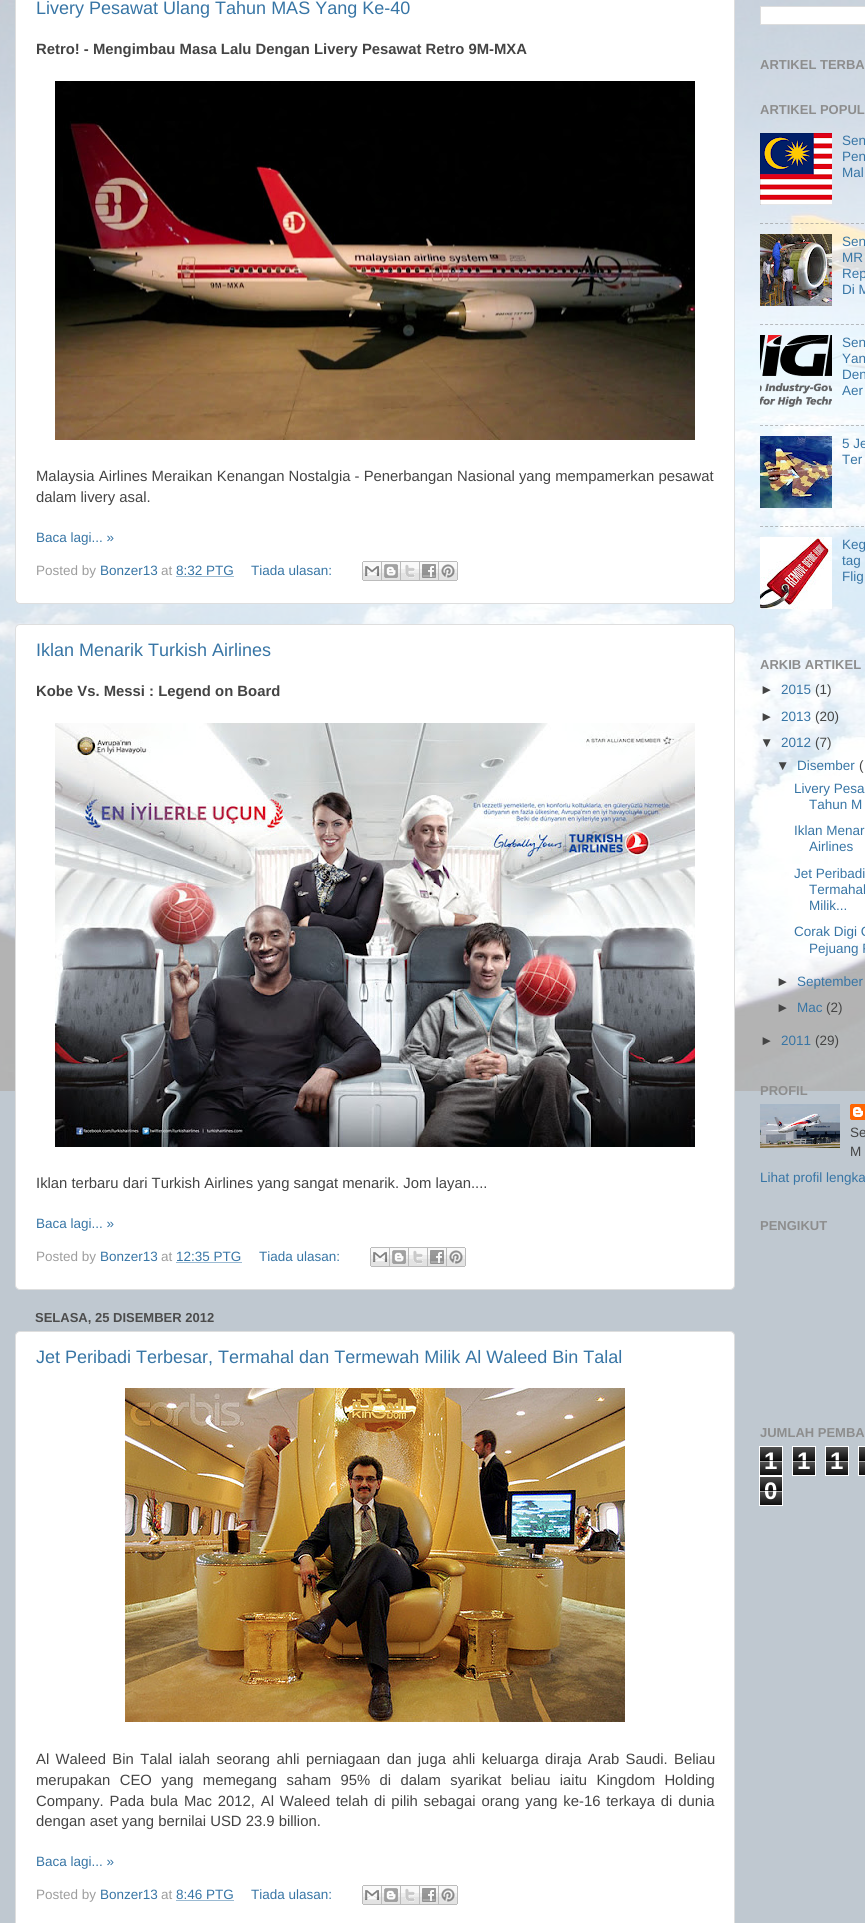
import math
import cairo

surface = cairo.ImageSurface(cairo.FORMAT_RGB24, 865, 1923)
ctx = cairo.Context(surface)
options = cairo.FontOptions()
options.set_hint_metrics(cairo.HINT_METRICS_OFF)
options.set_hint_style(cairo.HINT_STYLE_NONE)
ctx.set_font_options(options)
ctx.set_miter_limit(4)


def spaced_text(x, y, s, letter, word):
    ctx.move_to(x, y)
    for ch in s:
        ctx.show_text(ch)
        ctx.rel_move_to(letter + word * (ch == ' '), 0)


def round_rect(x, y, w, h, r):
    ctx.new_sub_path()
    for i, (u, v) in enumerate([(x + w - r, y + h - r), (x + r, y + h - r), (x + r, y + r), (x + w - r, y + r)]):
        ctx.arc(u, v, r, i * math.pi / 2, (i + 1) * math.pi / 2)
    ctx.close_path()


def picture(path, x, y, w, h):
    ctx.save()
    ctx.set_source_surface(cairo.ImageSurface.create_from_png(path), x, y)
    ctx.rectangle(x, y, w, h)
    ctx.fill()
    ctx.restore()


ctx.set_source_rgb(0.749, 0.784, 0.816)
ctx.paint()
picture("img1.png", 0, 0, 865, 1091)
ctx.set_source_rgb(1, 1, 1)
round_rect(15.5, -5.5, 719, 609, 4.5)
ctx.fill_preserve()
ctx.set_source_rgb(0.871, 0.871, 0.871)
ctx.set_line_width(1)
ctx.stroke()
ctx.select_font_face("Liberation Sans")
ctx.set_font_size(18)
ctx.set_source_rgb(0.216, 0.459, 0.647)
ctx.move_to(36, 14)
ctx.show_text("Livery Pesawat Ulang Tahun MAS Yang Ke-40")
ctx.select_font_face("Liberation Sans", cairo.FONT_SLANT_NORMAL, cairo.FONT_WEIGHT_BOLD)
ctx.set_font_size(14.85)
ctx.set_source_rgb(0.267, 0.267, 0.267)
ctx.move_to(36, 54)
ctx.show_text("Retro! - Mengimbau Masa Lalu Dengan Livery Pesawat Retro 9M-MXA")
picture("img2.png", 55, 81, 640, 359)
ctx.select_font_face("Liberation Sans")
ctx.move_to(36, 481)
ctx.show_text("Malaysia Airlines Meraikan Kenangan Nostalgia - Penerbangan Nasional yang mempamerkan pesawat")
ctx.move_to(36, 502)
ctx.show_text("dalam livery asal.")
ctx.set_font_size(13.5)
ctx.set_source_rgb(0.216, 0.459, 0.647)
ctx.move_to(36, 542)
ctx.show_text("Baca lagi... »")
ctx.set_source_rgb(0.616, 0.616, 0.616)
ctx.move_to(36, 575)
ctx.show_text("Posted by")
ctx.set_source_rgb(0.216, 0.459, 0.647)
ctx.move_to(100, 575)
ctx.show_text("Bonzer13")
ctx.set_source_rgb(0.616, 0.616, 0.616)
ctx.move_to(161, 575)
ctx.show_text("at")
ctx.set_source_rgb(0.216, 0.459, 0.647)
ctx.move_to(176, 575)
ctx.show_text("8:32 PTG")
ctx.new_path()
ctx.move_to(176.5, 576.5)
ctx.line_to(234, 576.5)
ctx.set_dash([1, 1])
ctx.stroke()
ctx.move_to(251, 575)
ctx.show_text("Tiada ulasan:")
picture("img3.png", 362, 561, 20, 20)
picture("img4.png", 382, 561, 19, 20)
picture("img5.png", 401, 561, 19, 20)
picture("img6.png", 420, 561, 19, 20)
picture("img7.png", 439, 561, 19, 20)
ctx.set_source_rgb(1, 1, 1)
round_rect(15.5, 624.5, 719, 665, 4.5)
ctx.fill_preserve()
ctx.set_source_rgb(0.871, 0.871, 0.871)
ctx.set_dash([])
ctx.stroke()
ctx.set_font_size(18)
ctx.set_source_rgb(0.216, 0.459, 0.647)
ctx.move_to(36, 656)
ctx.show_text("Iklan Menarik Turkish Airlines")
ctx.select_font_face("Liberation Sans", cairo.FONT_SLANT_NORMAL, cairo.FONT_WEIGHT_BOLD)
ctx.set_font_size(14.85)
ctx.set_source_rgb(0.267, 0.267, 0.267)
ctx.move_to(36, 696)
ctx.show_text("Kobe Vs. Messi : Legend on Board")
picture("img8.png", 55, 723, 640, 424)
ctx.select_font_face("Liberation Sans")
ctx.move_to(36, 1188)
ctx.show_text("Iklan terbaru dari Turkish Airlines yang sangat menarik. Jom layan....")
ctx.set_font_size(13.5)
ctx.set_source_rgb(0.216, 0.459, 0.647)
ctx.move_to(36, 1228)
ctx.show_text("Baca lagi... »")
ctx.set_source_rgb(0.616, 0.616, 0.616)
ctx.move_to(36, 1261)
ctx.show_text("Posted by")
ctx.set_source_rgb(0.216, 0.459, 0.647)
ctx.move_to(100, 1261)
ctx.show_text("Bonzer13")
ctx.set_source_rgb(0.616, 0.616, 0.616)
ctx.move_to(161, 1261)
ctx.show_text("at")
ctx.set_source_rgb(0.216, 0.459, 0.647)
ctx.move_to(176, 1261)
ctx.show_text("12:35 PTG")
ctx.new_path()
ctx.move_to(176.5, 1262.5)
ctx.line_to(241.5, 1262.5)
ctx.set_dash([1, 1])
ctx.stroke()
ctx.move_to(259, 1261)
ctx.show_text("Tiada ulasan:")
picture("img3.png", 370, 1247, 20, 20)
picture("img4.png", 390, 1247, 19, 20)
picture("img5.png", 409, 1247, 19, 20)
picture("img6.png", 428, 1247, 19, 20)
picture("img7.png", 447, 1247, 19, 20)
ctx.select_font_face("Liberation Sans", cairo.FONT_SLANT_NORMAL, cairo.FONT_WEIGHT_BOLD)
ctx.set_font_size(13)
ctx.set_source_rgb(0.294, 0.294, 0.294)
ctx.move_to(35, 1322)
ctx.show_text("SELASA, 25 DISEMBER 2012")
ctx.set_source_rgb(1, 1, 1)
round_rect(15.5, 1331.5, 719, 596, 4.5)
ctx.fill_preserve()
ctx.set_source_rgb(0.871, 0.871, 0.871)
ctx.set_dash([])
ctx.stroke()
ctx.select_font_face("Liberation Sans")
ctx.set_font_size(18)
ctx.set_source_rgb(0.216, 0.459, 0.647)
ctx.move_to(36, 1363)
ctx.show_text("Jet Peribadi Terbesar, Termahal dan Termewah Milik Al Waleed Bin Talal")
picture("img9.png", 125, 1388, 500, 334)
ctx.set_font_size(14.85)
ctx.set_source_rgb(0.267, 0.267, 0.267)
spaced_text(36, 1764, "Al Waleed Bin Talal ialah seorang ahli perniagaan dan juga ahli keluarga diraja Arab Saudi. Beliau", 0, 2.25)
spaced_text(36, 1785, "merupakan CEO yang memegang saham 95% di dalam syarikat beliau iaitu Kingdom Holding", 0, 5.25)
spaced_text(36, 1806, "Company. Pada bula Mac 2012, Al Waleed telah di pilih sebagai orang yang ke-16 terkaya di dunia", 0, 1.7)
ctx.move_to(36, 1826)
ctx.show_text("dengan aset yang bernilai USD 23.9 billion.")
ctx.set_font_size(13.5)
ctx.set_source_rgb(0.216, 0.459, 0.647)
ctx.move_to(36, 1866)
ctx.show_text("Baca lagi... »")
ctx.set_source_rgb(0.616, 0.616, 0.616)
ctx.move_to(36, 1899)
ctx.show_text("Posted by")
ctx.set_source_rgb(0.216, 0.459, 0.647)
ctx.move_to(100, 1899)
ctx.show_text("Bonzer13")
ctx.set_source_rgb(0.616, 0.616, 0.616)
ctx.move_to(161, 1899)
ctx.show_text("at")
ctx.set_source_rgb(0.216, 0.459, 0.647)
ctx.move_to(176, 1899)
ctx.show_text("8:46 PTG")
ctx.new_path()
ctx.move_to(176.5, 1900.5)
ctx.line_to(234, 1900.5)
ctx.set_dash([1, 1])
ctx.stroke()
ctx.move_to(251, 1899)
ctx.show_text("Tiada ulasan:")
picture("img3.png", 362, 1885, 20, 20)
picture("img4.png", 382, 1885, 19, 20)
picture("img5.png", 401, 1885, 19, 20)
picture("img6.png", 420, 1885, 19, 20)
picture("img7.png", 439, 1885, 19, 20)
ctx.set_source_rgb(1, 1, 1)
ctx.rectangle(760.5, 6.5, 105, 18)
ctx.fill_preserve()
ctx.set_source_rgb(0.867, 0.867, 0.867)
ctx.set_dash([])
ctx.stroke()
ctx.select_font_face("Liberation Sans", cairo.FONT_SLANT_NORMAL, cairo.FONT_WEIGHT_BOLD)
ctx.set_font_size(13)
ctx.set_source_rgb(0.553, 0.553, 0.553)
ctx.move_to(760, 69)
ctx.show_text("ARTIKEL TERBA")
ctx.move_to(760, 114)
ctx.show_text("ARTIKEL POPUL")
picture("img10.png", 760, 133, 72, 72)
ctx.select_font_face("Liberation Sans")
ctx.set_font_size(13.5)
ctx.set_source_rgb(0.216, 0.459, 0.647)
ctx.move_to(842, 145)
ctx.show_text("Sen")
ctx.move_to(842, 161)
ctx.show_text("Pen")
ctx.move_to(842, 177)
ctx.show_text("Mal")
ctx.new_path()
ctx.move_to(760, 223.5)
ctx.line_to(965, 223.5)
ctx.set_source_rgba(0.502, 0.502, 0.502, 0.5)
ctx.set_dash([3, 2.05])
ctx.stroke()
picture("img11.png", 760, 234, 72, 72)
ctx.set_source_rgb(0.216, 0.459, 0.647)
ctx.move_to(842, 246)
ctx.show_text("Sen")
ctx.move_to(842, 262)
ctx.show_text("MR")
ctx.move_to(842, 278)
ctx.show_text("Rep")
ctx.move_to(842, 294)
ctx.show_text("Di M")
ctx.new_path()
ctx.move_to(760, 324.5)
ctx.line_to(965, 324.5)
ctx.set_source_rgba(0.502, 0.502, 0.502, 0.5)
ctx.stroke()
picture("img12.png", 760, 335, 72, 72)
ctx.set_source_rgb(0.216, 0.459, 0.647)
ctx.move_to(842, 347)
ctx.show_text("Sen")
ctx.move_to(842, 363)
ctx.show_text("Yan")
ctx.move_to(842, 379)
ctx.show_text("Den")
ctx.move_to(842, 395)
ctx.show_text("Aer")
ctx.new_path()
ctx.move_to(760, 425.5)
ctx.line_to(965, 425.5)
ctx.set_source_rgba(0.502, 0.502, 0.502, 0.5)
ctx.stroke()
picture("img13.png", 760, 436, 72, 72)
ctx.set_source_rgb(0.216, 0.459, 0.647)
ctx.move_to(842, 448)
ctx.show_text("5 Je")
ctx.move_to(842, 464)
ctx.show_text("Ter")
ctx.new_path()
ctx.move_to(760, 526.5)
ctx.line_to(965, 526.5)
ctx.set_source_rgba(0.502, 0.502, 0.502, 0.5)
ctx.stroke()
picture("img14.png", 760, 537, 72, 72)
ctx.set_source_rgb(0.216, 0.459, 0.647)
ctx.move_to(842, 549)
ctx.show_text("Keg")
ctx.move_to(842, 565)
ctx.show_text("tag")
ctx.move_to(842, 581)
ctx.show_text("Flig")
ctx.select_font_face("Liberation Sans", cairo.FONT_SLANT_NORMAL, cairo.FONT_WEIGHT_BOLD)
ctx.set_font_size(13)
ctx.set_source_rgb(0.553, 0.553, 0.553)
ctx.move_to(760, 669)
ctx.show_text("ARKIB ARTIKEL")
ctx.select_font_face("Liberation Sans")
ctx.set_font_size(13.5)
ctx.set_source_rgb(0.267, 0.267, 0.267)
ctx.move_to(760, 694)
ctx.show_text("►")
ctx.set_source_rgb(0.216, 0.459, 0.647)
ctx.move_to(781, 694)
ctx.show_text("2015")
ctx.set_source_rgb(0.267, 0.267, 0.267)
ctx.move_to(815, 694)
ctx.show_text("(1)")
ctx.move_to(760, 721)
ctx.show_text("►")
ctx.set_source_rgb(0.216, 0.459, 0.647)
ctx.move_to(781, 721)
ctx.show_text("2013")
ctx.set_source_rgb(0.267, 0.267, 0.267)
ctx.move_to(815, 721)
ctx.show_text("(20)")
ctx.move_to(760, 747)
ctx.show_text("▼")
ctx.set_source_rgb(0.216, 0.459, 0.647)
ctx.move_to(781, 747)
ctx.show_text("2012")
ctx.set_source_rgb(0.267, 0.267, 0.267)
ctx.move_to(815, 747)
ctx.show_text("(7)")
ctx.move_to(776, 770)
ctx.show_text("▼")
ctx.set_source_rgb(0.216, 0.459, 0.647)
ctx.move_to(797, 770)
ctx.show_text("Disember")
ctx.set_source_rgb(0.267, 0.267, 0.267)
ctx.move_to(859, 770)
ctx.show_text("(")
ctx.set_source_rgb(0.216, 0.459, 0.647)
ctx.move_to(794, 793)
ctx.show_text("Livery Pesa")
ctx.move_to(809, 809)
ctx.show_text("Tahun M")
ctx.move_to(794, 835)
ctx.show_text("Iklan Menar")
ctx.move_to(809, 851)
ctx.show_text("Airlines")
ctx.move_to(794, 878)
ctx.show_text("Jet Peribadi")
ctx.move_to(809, 894)
ctx.show_text("Termahal")
ctx.move_to(809, 910)
ctx.show_text("Milik...")
ctx.move_to(794, 936)
ctx.show_text("Corak Digi C")
ctx.move_to(809, 953)
ctx.show_text("Pejuang F")
ctx.set_source_rgb(0.267, 0.267, 0.267)
ctx.move_to(776, 986)
ctx.show_text("►")
ctx.set_source_rgb(0.216, 0.459, 0.647)
ctx.move_to(797, 986)
ctx.show_text("September")
ctx.set_source_rgb(0.267, 0.267, 0.267)
ctx.move_to(776, 1012)
ctx.show_text("►")
ctx.set_source_rgb(0.216, 0.459, 0.647)
ctx.move_to(797, 1012)
ctx.show_text("Mac")
ctx.set_source_rgb(0.267, 0.267, 0.267)
ctx.move_to(826, 1012)
ctx.show_text("(2)")
ctx.move_to(760, 1045)
ctx.show_text("►")
ctx.set_source_rgb(0.216, 0.459, 0.647)
ctx.move_to(781, 1045)
ctx.show_text("2011")
ctx.set_source_rgb(0.267, 0.267, 0.267)
ctx.move_to(815, 1045)
ctx.show_text("(29)")
ctx.select_font_face("Liberation Sans", cairo.FONT_SLANT_NORMAL, cairo.FONT_WEIGHT_BOLD)
ctx.set_font_size(13)
ctx.set_source_rgb(0.553, 0.553, 0.553)
ctx.move_to(760, 1095)
ctx.show_text("PROFIL")
picture("img15.png", 760, 1104, 80, 44)
picture("img16.png", 850, 1104, 15, 16)
ctx.select_font_face("Liberation Sans")
ctx.set_font_size(13.5)
ctx.set_source_rgb(0.267, 0.267, 0.267)
ctx.move_to(850, 1137)
ctx.show_text("Se")
ctx.move_to(850, 1156)
ctx.show_text("M")
ctx.set_source_rgb(0.216, 0.459, 0.647)
ctx.move_to(760, 1182)
ctx.show_text("Lihat profil lengka")
ctx.select_font_face("Liberation Sans", cairo.FONT_SLANT_NORMAL, cairo.FONT_WEIGHT_BOLD)
ctx.set_font_size(13)
ctx.set_source_rgb(0.553, 0.553, 0.553)
ctx.move_to(760, 1230)
ctx.show_text("PENGIKUT")
ctx.move_to(760, 1437)
ctx.show_text("JUMLAH PEMBA")
picture("img17.png", 760, 1447, 22, 28)
ctx.rectangle(759.5, 1446.5, 23, 29)
ctx.set_source_rgb(1, 1, 1)
ctx.set_dash([])
ctx.stroke()
ctx.set_font_size(24)
ctx.move_to(764, 1469)
ctx.show_text("1")
ctx.set_source_rgba(0, 0, 0, 0.65)
ctx.rectangle(760, 1460, 22, 1)
ctx.fill()
ctx.set_source_rgba(1, 1, 1, 0.65)
ctx.rectangle(760, 1461, 22, 1)
ctx.fill()
picture("img17.png", 793, 1447, 22, 28)
ctx.rectangle(792.5, 1446.5, 23, 29)
ctx.set_source_rgb(1, 1, 1)
ctx.stroke()
ctx.move_to(797, 1469)
ctx.show_text("1")
ctx.set_source_rgba(0, 0, 0, 0.65)
ctx.rectangle(793, 1460, 22, 1)
ctx.fill()
ctx.set_source_rgba(1, 1, 1, 0.65)
ctx.rectangle(793, 1461, 22, 1)
ctx.fill()
picture("img17.png", 826, 1447, 22, 28)
ctx.rectangle(825.5, 1446.5, 23, 29)
ctx.set_source_rgb(1, 1, 1)
ctx.stroke()
ctx.move_to(830, 1469)
ctx.show_text("1")
ctx.set_source_rgba(0, 0, 0, 0.65)
ctx.rectangle(826, 1460, 22, 1)
ctx.fill()
ctx.set_source_rgba(1, 1, 1, 0.65)
ctx.rectangle(826, 1461, 22, 1)
ctx.fill()
picture("img18.png", 859, 1447, 6, 28)
ctx.rectangle(858.5, 1446.5, 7, 29)
ctx.set_source_rgb(1, 1, 1)
ctx.stroke()
ctx.set_source_rgb(0.016, 0.016, 0.016)
ctx.rectangle(859, 1460, 6, 1)
ctx.fill()
ctx.set_source_rgb(0.659, 0.659, 0.659)
ctx.rectangle(859, 1461, 6, 1)
ctx.fill()
picture("img17.png", 760, 1477, 22, 28)
ctx.rectangle(759.5, 1476.5, 23, 29)
ctx.set_source_rgb(1, 1, 1)
ctx.stroke()
ctx.move_to(764, 1499)
ctx.show_text("0")
ctx.set_source_rgba(0, 0, 0, 0.65)
ctx.rectangle(760, 1490, 22, 1)
ctx.fill()
ctx.set_source_rgba(1, 1, 1, 0.65)
ctx.rectangle(760, 1491, 22, 1)
ctx.fill()
surface.write_to_png("page.png")
